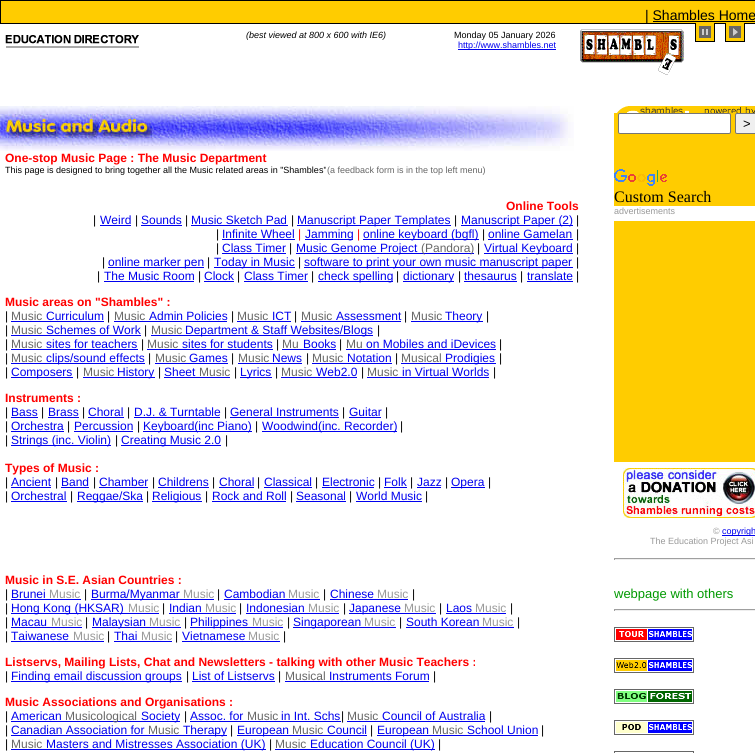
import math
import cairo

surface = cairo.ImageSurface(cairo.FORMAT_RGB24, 755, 753)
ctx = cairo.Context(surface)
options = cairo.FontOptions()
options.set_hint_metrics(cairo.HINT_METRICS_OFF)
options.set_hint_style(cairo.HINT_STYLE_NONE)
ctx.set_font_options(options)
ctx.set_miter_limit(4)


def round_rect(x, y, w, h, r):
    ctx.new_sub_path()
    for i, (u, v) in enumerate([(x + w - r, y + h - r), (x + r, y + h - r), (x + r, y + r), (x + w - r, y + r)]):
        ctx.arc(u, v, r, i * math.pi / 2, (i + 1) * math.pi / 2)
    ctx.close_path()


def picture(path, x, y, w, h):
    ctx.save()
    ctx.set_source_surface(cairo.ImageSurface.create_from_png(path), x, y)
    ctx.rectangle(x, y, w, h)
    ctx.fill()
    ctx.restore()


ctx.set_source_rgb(1, 1, 1)
ctx.paint()
ctx.set_source_rgb(0, 0, 0)
ctx.rectangle(0, 0, 755, 24)
ctx.fill()
ctx.set_source_rgb(1, 0.8, 0)
ctx.rectangle(1, 1, 754, 22)
ctx.fill()
ctx.select_font_face("Liberation Sans")
ctx.set_font_size(14)
ctx.set_source_rgb(0, 0, 0)
ctx.move_to(645, 20)
ctx.show_text("| Shambles Home")
ctx.rectangle(653, 21, 102, 1)
ctx.fill()
ctx.rectangle(695, 24, 20, 18)
ctx.fill()
ctx.set_source_rgb(1, 0.8, 0)
ctx.rectangle(696, 23, 18, 18)
ctx.fill()
picture("img1.png", 699, 26, 12, 12)
ctx.set_source_rgb(0, 0, 0)
ctx.rectangle(725, 24, 20, 18)
ctx.fill()
ctx.set_source_rgb(1, 0.8, 0)
ctx.rectangle(726, 23, 18, 18)
ctx.fill()
picture("img2.png", 729, 26, 12, 12)
picture("img3.png", 5, 35, 134, 13)
ctx.select_font_face("Liberation Sans", cairo.FONT_SLANT_ITALIC)
ctx.set_font_size(9)
ctx.set_source_rgb(0, 0, 0)
ctx.move_to(246, 38)
ctx.show_text("(best viewed at 800 x 600 with IE6)")
ctx.select_font_face("Liberation Sans")
ctx.move_to(454, 38)
ctx.show_text("Monday 05 January 2026")
ctx.set_source_rgb(0, 0, 0.933)
ctx.rectangle(458, 49, 98, 1)
ctx.fill()
ctx.move_to(458, 48)
ctx.show_text("http://www.shambles.net")
picture("img4.png", 580, 29, 104, 46)
ctx.select_font_face("Liberation Sans", cairo.FONT_SLANT_NORMAL, cairo.FONT_WEIGHT_BOLD)
ctx.set_font_size(12)
ctx.set_source_rgb(1, 0, 0)
ctx.move_to(5, 162)
ctx.show_text("One-stop Music Page : The Music Department")
ctx.select_font_face("Liberation Sans")
ctx.set_font_size(9)
ctx.set_source_rgb(0, 0, 0)
ctx.move_to(5, 173)
ctx.show_text("This page is designed to bring together all the Music related areas in \"Shambles\"")
ctx.set_source_rgb(0.4, 0.4, 0.4)
ctx.move_to(327, 173)
ctx.show_text("(a feedback form is in the top left menu)")
ctx.select_font_face("Liberation Sans", cairo.FONT_SLANT_NORMAL, cairo.FONT_WEIGHT_BOLD)
ctx.set_font_size(12)
ctx.set_source_rgb(1, 0, 0)
ctx.move_to(506, 210)
ctx.show_text("Online Tools")
ctx.select_font_face("Liberation Sans")
ctx.set_source_rgb(0, 0, 0)
ctx.move_to(93, 224)
ctx.show_text("|")
ctx.set_source_rgb(0, 0, 0.933)
ctx.move_to(100, 224)
ctx.show_text("Weird")
ctx.rectangle(100, 225, 31, 1)
ctx.fill()
ctx.set_source_rgb(0, 0, 0)
ctx.move_to(135, 224)
ctx.show_text("|")
ctx.set_source_rgb(0, 0, 0.933)
ctx.move_to(141, 224)
ctx.show_text("Sounds")
ctx.rectangle(141, 225, 41, 1)
ctx.fill()
ctx.set_source_rgb(0, 0, 0)
ctx.move_to(185, 224)
ctx.show_text("|")
ctx.set_source_rgb(0, 0, 0.933)
ctx.move_to(191, 224)
ctx.show_text("Music Sketch Pad")
ctx.rectangle(191, 225, 97, 1)
ctx.fill()
ctx.set_source_rgb(0, 0, 0)
ctx.move_to(291, 224)
ctx.show_text("|")
ctx.set_source_rgb(0, 0, 0.933)
ctx.rectangle(297, 225, 154, 1)
ctx.fill()
ctx.move_to(297, 224)
ctx.show_text("Manuscript Paper Templates")
ctx.set_source_rgb(0, 0, 0)
ctx.move_to(454, 224)
ctx.show_text("|")
ctx.set_source_rgb(0, 0, 0.933)
ctx.rectangle(461, 225, 112, 1)
ctx.fill()
ctx.move_to(461, 224)
ctx.show_text("Manuscript Paper (2)")
ctx.set_source_rgb(0, 0, 0)
ctx.move_to(576, 224)
ctx.show_text("|")
ctx.move_to(216, 238)
ctx.show_text("|")
ctx.set_source_rgb(0, 0, 0.933)
ctx.move_to(222, 238)
ctx.show_text("Infinite Wheel")
ctx.rectangle(222, 239, 73, 1)
ctx.fill()
ctx.set_source_rgb(1, 0, 0)
ctx.move_to(298, 238)
ctx.show_text("|")
ctx.set_source_rgb(0, 0, 0.933)
ctx.rectangle(305, 239, 48, 1)
ctx.fill()
ctx.move_to(305, 238)
ctx.show_text("Jamming")
ctx.set_source_rgb(1, 0, 0)
ctx.move_to(357, 238)
ctx.show_text("|")
ctx.set_source_rgb(0, 0, 0.933)
ctx.rectangle(363, 239, 116, 1)
ctx.fill()
ctx.move_to(363, 238)
ctx.show_text("online keyboard (bgfl)")
ctx.set_source_rgb(0, 0, 0)
ctx.move_to(482, 238)
ctx.show_text("|")
ctx.set_source_rgb(0, 0, 0.933)
ctx.move_to(488, 238)
ctx.show_text("online Gamelan")
ctx.rectangle(488, 239, 85, 1)
ctx.fill()
ctx.set_source_rgb(0, 0, 0)
ctx.move_to(576, 238)
ctx.show_text("|")
ctx.move_to(216, 252)
ctx.show_text("|")
ctx.set_source_rgb(0, 0, 0.933)
ctx.move_to(222, 252)
ctx.show_text("Class Timer")
ctx.rectangle(222, 253, 64, 1)
ctx.fill()
ctx.set_source_rgb(0, 0, 0)
ctx.move_to(289, 252)
ctx.show_text("|")
ctx.set_source_rgb(0, 0, 0.933)
ctx.rectangle(296, 253, 121, 1)
ctx.fill()
ctx.move_to(296, 252)
ctx.show_text("Music Genome Project")
ctx.rectangle(417, 253, 57, 1)
ctx.fill()
ctx.set_source_rgb(0.4, 0.4, 0.4)
ctx.move_to(421, 252)
ctx.show_text("(Pandora)")
ctx.set_source_rgb(0, 0, 0)
ctx.move_to(477, 252)
ctx.show_text("|")
ctx.set_source_rgb(0, 0, 0.933)
ctx.rectangle(484, 253, 89, 1)
ctx.fill()
ctx.move_to(484, 252)
ctx.show_text("Virtual Keyboard")
ctx.set_source_rgb(0, 0, 0)
ctx.move_to(576, 252)
ctx.show_text("|")
ctx.move_to(102, 266)
ctx.show_text("|")
ctx.set_source_rgb(0, 0, 0.933)
ctx.rectangle(108, 267, 96, 1)
ctx.fill()
ctx.move_to(108, 266)
ctx.show_text("online marker pen")
ctx.set_source_rgb(0, 0, 0)
ctx.move_to(207, 266)
ctx.show_text("|")
ctx.set_source_rgb(0, 0, 0.933)
ctx.rectangle(214, 267, 81, 1)
ctx.fill()
ctx.move_to(214, 266)
ctx.show_text("Today in Music")
ctx.set_source_rgb(0, 0, 0)
ctx.move_to(298, 266)
ctx.show_text("|")
ctx.set_source_rgb(0, 0, 0.933)
ctx.rectangle(304, 267, 269, 1)
ctx.fill()
ctx.move_to(304, 266)
ctx.show_text("software to print your own music manuscript paper")
ctx.set_source_rgb(0, 0, 0)
ctx.move_to(576, 266)
ctx.show_text("|")
ctx.move_to(97, 280)
ctx.show_text("|")
ctx.set_source_rgb(0, 0, 0.933)
ctx.move_to(104, 280)
ctx.show_text("The Music Room")
ctx.rectangle(104, 281, 90, 1)
ctx.fill()
ctx.set_source_rgb(0, 0, 0)
ctx.move_to(198, 280)
ctx.show_text("|")
ctx.set_source_rgb(0, 0, 0.933)
ctx.move_to(204, 280)
ctx.show_text("Clock")
ctx.rectangle(204, 281, 30, 1)
ctx.fill()
ctx.set_source_rgb(0, 0, 0)
ctx.move_to(237, 280)
ctx.show_text("|")
ctx.set_source_rgb(0, 0, 0.933)
ctx.move_to(244, 280)
ctx.show_text("Class Timer")
ctx.rectangle(244, 281, 64, 1)
ctx.fill()
ctx.set_source_rgb(0, 0, 0)
ctx.move_to(311, 280)
ctx.show_text("|")
ctx.set_source_rgb(0, 0, 0.933)
ctx.rectangle(318, 281, 75, 1)
ctx.fill()
ctx.move_to(318, 280)
ctx.show_text("check spelling")
ctx.set_source_rgb(0, 0, 0)
ctx.move_to(396, 280)
ctx.show_text("|")
ctx.set_source_rgb(0, 0, 0.933)
ctx.rectangle(403, 281, 51, 1)
ctx.fill()
ctx.move_to(403, 280)
ctx.show_text("dictionary")
ctx.set_source_rgb(0, 0, 0)
ctx.move_to(458, 280)
ctx.show_text("|")
ctx.set_source_rgb(0, 0, 0.933)
ctx.move_to(464, 280)
ctx.show_text("thesaurus")
ctx.rectangle(464, 281, 53, 1)
ctx.fill()
ctx.set_source_rgb(0, 0, 0)
ctx.move_to(520, 280)
ctx.show_text("|")
ctx.set_source_rgb(0, 0, 0.933)
ctx.move_to(527, 280)
ctx.show_text("translate")
ctx.rectangle(527, 281, 46, 1)
ctx.fill()
ctx.set_source_rgb(0, 0, 0)
ctx.move_to(576, 280)
ctx.show_text("|")
ctx.select_font_face("Liberation Sans", cairo.FONT_SLANT_NORMAL, cairo.FONT_WEIGHT_BOLD)
ctx.set_source_rgb(1, 0, 0)
ctx.move_to(5, 306)
ctx.show_text("Music areas on \"Shambles\" :")
ctx.select_font_face("Liberation Sans")
ctx.set_source_rgb(0, 0, 0)
ctx.move_to(5, 320)
ctx.show_text("|")
ctx.set_source_rgb(0.4, 0.4, 0.4)
ctx.move_to(11, 320)
ctx.show_text("Music")
ctx.set_source_rgb(0, 0, 0.933)
ctx.rectangle(11, 321, 93, 1)
ctx.fill()
ctx.move_to(46, 320)
ctx.show_text("Curriculum")
ctx.set_source_rgb(0, 0, 0)
ctx.move_to(107, 320)
ctx.show_text("|")
ctx.set_source_rgb(0.4, 0.4, 0.4)
ctx.move_to(114, 320)
ctx.show_text("Music")
ctx.set_source_rgb(0, 0, 0.933)
ctx.rectangle(114, 321, 113, 1)
ctx.fill()
ctx.move_to(149, 320)
ctx.show_text("Admin Policies")
ctx.set_source_rgb(0, 0, 0)
ctx.move_to(231, 320)
ctx.show_text("|")
ctx.set_source_rgb(0.4, 0.4, 0.4)
ctx.move_to(237, 320)
ctx.show_text("Music")
ctx.set_source_rgb(0, 0, 0.933)
ctx.rectangle(237, 321, 54, 1)
ctx.fill()
ctx.move_to(272, 320)
ctx.show_text("ICT")
ctx.set_source_rgb(0, 0, 0)
ctx.move_to(294, 320)
ctx.show_text("|")
ctx.set_source_rgb(0.4, 0.4, 0.4)
ctx.move_to(301, 320)
ctx.show_text("Music")
ctx.set_source_rgb(0, 0, 0.933)
ctx.rectangle(301, 321, 100, 1)
ctx.fill()
ctx.move_to(336, 320)
ctx.show_text("Assessment")
ctx.set_source_rgb(0, 0, 0)
ctx.move_to(404, 320)
ctx.show_text("|")
ctx.set_source_rgb(0.4, 0.4, 0.4)
ctx.move_to(411, 320)
ctx.show_text("Music")
ctx.set_source_rgb(0, 0, 0.933)
ctx.rectangle(411, 321, 72, 1)
ctx.fill()
ctx.move_to(445, 320)
ctx.show_text("Theory")
ctx.set_source_rgb(0, 0, 0)
ctx.move_to(486, 320)
ctx.show_text("|")
ctx.move_to(5, 334)
ctx.show_text("|")
ctx.set_source_rgb(0.4, 0.4, 0.4)
ctx.move_to(11, 334)
ctx.show_text("Music")
ctx.set_source_rgb(0, 0, 0.933)
ctx.rectangle(11, 335, 130, 1)
ctx.fill()
ctx.move_to(46, 334)
ctx.show_text("Schemes of Work")
ctx.set_source_rgb(0, 0, 0)
ctx.move_to(144, 334)
ctx.show_text("|")
ctx.set_source_rgb(0.4, 0.4, 0.4)
ctx.move_to(151, 334)
ctx.show_text("Music")
ctx.set_source_rgb(0, 0, 0.933)
ctx.rectangle(151, 335, 222, 1)
ctx.fill()
ctx.move_to(185, 334)
ctx.show_text("Department & Staff Websites/Blogs")
ctx.set_source_rgb(0, 0, 0)
ctx.move_to(377, 334)
ctx.show_text("|")
ctx.move_to(5, 348)
ctx.show_text("|")
ctx.set_source_rgb(0.4, 0.4, 0.4)
ctx.move_to(11, 348)
ctx.show_text("Music")
ctx.set_source_rgb(0, 0, 0.933)
ctx.rectangle(11, 349, 127, 1)
ctx.fill()
ctx.move_to(46, 348)
ctx.show_text("sites for teachers")
ctx.set_source_rgb(0, 0, 0)
ctx.move_to(141, 348)
ctx.show_text("|")
ctx.set_source_rgb(0.4, 0.4, 0.4)
ctx.move_to(147, 348)
ctx.show_text("Music")
ctx.set_source_rgb(0, 0, 0.933)
ctx.rectangle(147, 349, 126, 1)
ctx.fill()
ctx.move_to(182, 348)
ctx.show_text("sites for students")
ctx.set_source_rgb(0, 0, 0)
ctx.move_to(276, 348)
ctx.show_text("|")
ctx.set_source_rgb(0.4, 0.4, 0.4)
ctx.move_to(282, 348)
ctx.show_text("Mu")
ctx.set_source_rgb(0, 0, 0.933)
ctx.rectangle(282, 349, 54, 1)
ctx.fill()
ctx.move_to(303, 348)
ctx.show_text("Books")
ctx.set_source_rgb(0, 0, 0)
ctx.move_to(339, 348)
ctx.show_text("|")
ctx.set_source_rgb(0.4, 0.4, 0.4)
ctx.move_to(346, 348)
ctx.show_text("Mu")
ctx.set_source_rgb(0, 0, 0.933)
ctx.rectangle(346, 349, 150, 1)
ctx.fill()
ctx.move_to(366, 348)
ctx.show_text("on Mobiles and iDevices")
ctx.set_source_rgb(0, 0, 0)
ctx.move_to(499, 348)
ctx.show_text("|")
ctx.move_to(5, 362)
ctx.show_text("|")
ctx.set_source_rgb(0.4, 0.4, 0.4)
ctx.move_to(11, 362)
ctx.show_text("Music")
ctx.set_source_rgb(0, 0, 0.933)
ctx.rectangle(11, 363, 134, 1)
ctx.fill()
ctx.move_to(46, 362)
ctx.show_text("clips/sound effects")
ctx.set_source_rgb(0, 0, 0)
ctx.move_to(148, 362)
ctx.show_text("|")
ctx.set_source_rgb(0.4, 0.4, 0.4)
ctx.move_to(155, 362)
ctx.show_text("Music")
ctx.set_source_rgb(0, 0, 0.933)
ctx.rectangle(155, 363, 73, 1)
ctx.fill()
ctx.move_to(189, 362)
ctx.show_text("Games")
ctx.set_source_rgb(0, 0, 0)
ctx.move_to(231, 362)
ctx.show_text("|")
ctx.set_source_rgb(0.4, 0.4, 0.4)
ctx.move_to(238, 362)
ctx.show_text("Music")
ctx.set_source_rgb(0, 0, 0.933)
ctx.rectangle(238, 363, 64, 1)
ctx.fill()
ctx.move_to(272, 362)
ctx.show_text("News")
ctx.set_source_rgb(0, 0, 0)
ctx.move_to(306, 362)
ctx.show_text("|")
ctx.set_source_rgb(0.4, 0.4, 0.4)
ctx.move_to(312, 362)
ctx.show_text("Music")
ctx.set_source_rgb(0, 0, 0.933)
ctx.rectangle(312, 363, 80, 1)
ctx.fill()
ctx.move_to(347, 362)
ctx.show_text("Notation")
ctx.set_source_rgb(0, 0, 0)
ctx.move_to(395, 362)
ctx.show_text("|")
ctx.set_source_rgb(0.4, 0.4, 0.4)
ctx.move_to(401, 362)
ctx.show_text("Musical")
ctx.set_source_rgb(0, 0, 0.933)
ctx.rectangle(401, 363, 95, 1)
ctx.fill()
ctx.move_to(445, 362)
ctx.show_text("Prodigies")
ctx.set_source_rgb(0, 0, 0)
ctx.move_to(499, 362)
ctx.show_text("|")
ctx.move_to(5, 376)
ctx.show_text("|")
ctx.set_source_rgb(0, 0, 0.933)
ctx.rectangle(11, 377, 62, 1)
ctx.fill()
ctx.move_to(11, 376)
ctx.show_text("Composers")
ctx.set_source_rgb(0, 0, 0)
ctx.move_to(76, 376)
ctx.show_text("|")
ctx.set_source_rgb(0.4, 0.4, 0.4)
ctx.move_to(83, 376)
ctx.show_text("Music")
ctx.set_source_rgb(0, 0, 0.933)
ctx.rectangle(83, 377, 72, 1)
ctx.fill()
ctx.move_to(117, 376)
ctx.show_text("History")
ctx.set_source_rgb(0, 0, 0)
ctx.move_to(158, 376)
ctx.show_text("|")
ctx.set_source_rgb(0, 0, 0.933)
ctx.move_to(164, 376)
ctx.show_text("Sheet")
ctx.rectangle(164, 377, 66, 1)
ctx.fill()
ctx.set_source_rgb(0.4, 0.4, 0.4)
ctx.move_to(199, 376)
ctx.show_text("Music")
ctx.set_source_rgb(0, 0, 0)
ctx.move_to(234, 376)
ctx.show_text("|")
ctx.set_source_rgb(0, 0, 0.933)
ctx.rectangle(240, 377, 32, 1)
ctx.fill()
ctx.move_to(240, 376)
ctx.show_text("Lyrics")
ctx.set_source_rgb(0, 0, 0)
ctx.move_to(275, 376)
ctx.show_text("|")
ctx.set_source_rgb(0.4, 0.4, 0.4)
ctx.move_to(281, 376)
ctx.show_text("Music")
ctx.set_source_rgb(0, 0, 0.933)
ctx.rectangle(281, 377, 76, 1)
ctx.fill()
ctx.move_to(316, 376)
ctx.show_text("Web2.0")
ctx.set_source_rgb(0, 0, 0)
ctx.move_to(361, 376)
ctx.show_text("|")
ctx.set_source_rgb(0.4, 0.4, 0.4)
ctx.move_to(367, 376)
ctx.show_text("Music")
ctx.set_source_rgb(0, 0, 0.933)
ctx.rectangle(367, 377, 122, 1)
ctx.fill()
ctx.move_to(402, 376)
ctx.show_text("in Virtual Worlds")
ctx.set_source_rgb(0, 0, 0)
ctx.move_to(493, 376)
ctx.show_text("|")
ctx.select_font_face("Liberation Sans", cairo.FONT_SLANT_NORMAL, cairo.FONT_WEIGHT_BOLD)
ctx.set_source_rgb(1, 0, 0)
ctx.move_to(5, 402)
ctx.show_text("Instruments :")
ctx.select_font_face("Liberation Sans")
ctx.set_source_rgb(0, 0, 0)
ctx.move_to(5, 416)
ctx.show_text("|")
ctx.set_source_rgb(0, 0, 0.933)
ctx.move_to(11, 416)
ctx.show_text("Bass")
ctx.rectangle(11, 417, 27, 1)
ctx.fill()
ctx.set_source_rgb(0, 0, 0)
ctx.move_to(41, 416)
ctx.show_text("|")
ctx.set_source_rgb(0, 0, 0.933)
ctx.move_to(48, 416)
ctx.show_text("Brass")
ctx.rectangle(48, 417, 31, 1)
ctx.fill()
ctx.set_source_rgb(0, 0, 0)
ctx.move_to(82, 416)
ctx.show_text("|")
ctx.set_source_rgb(0, 0, 0.933)
ctx.move_to(88, 416)
ctx.show_text("Choral")
ctx.rectangle(88, 417, 36, 1)
ctx.fill()
ctx.set_source_rgb(0, 0, 0)
ctx.move_to(127, 416)
ctx.show_text("|")
ctx.set_source_rgb(0, 0, 0.933)
ctx.move_to(134, 416)
ctx.show_text("D.J. & Turntable")
ctx.rectangle(134, 417, 86, 1)
ctx.fill()
ctx.set_source_rgb(0, 0, 0)
ctx.move_to(224, 416)
ctx.show_text("|")
ctx.set_source_rgb(0, 0, 0.933)
ctx.move_to(230, 416)
ctx.show_text("General Instruments")
ctx.rectangle(230, 417, 109, 1)
ctx.fill()
ctx.set_source_rgb(0, 0, 0)
ctx.move_to(342, 416)
ctx.show_text("|")
ctx.set_source_rgb(0, 0, 0.933)
ctx.move_to(349, 416)
ctx.show_text("Guitar")
ctx.rectangle(349, 417, 32, 1)
ctx.fill()
ctx.set_source_rgb(0, 0, 0)
ctx.move_to(385, 416)
ctx.show_text("|")
ctx.move_to(5, 430)
ctx.show_text("|")
ctx.set_source_rgb(0, 0, 0.933)
ctx.move_to(11, 430)
ctx.show_text("Orchestra")
ctx.rectangle(11, 431, 53, 1)
ctx.fill()
ctx.set_source_rgb(0, 0, 0)
ctx.move_to(67, 430)
ctx.show_text("|")
ctx.set_source_rgb(0, 0, 0.933)
ctx.move_to(74, 430)
ctx.show_text("Percussion")
ctx.rectangle(74, 431, 59, 1)
ctx.fill()
ctx.set_source_rgb(0, 0, 0)
ctx.move_to(137, 430)
ctx.show_text("|")
ctx.set_source_rgb(0, 0, 0.933)
ctx.rectangle(143, 431, 109, 1)
ctx.fill()
ctx.move_to(143, 430)
ctx.show_text("Keyboard(inc Piano)")
ctx.set_source_rgb(0, 0, 0)
ctx.move_to(255, 430)
ctx.show_text("|")
ctx.set_source_rgb(0, 0, 0.933)
ctx.rectangle(262, 431, 135, 1)
ctx.fill()
ctx.move_to(262, 430)
ctx.show_text("Woodwind(inc. Recorder)")
ctx.set_source_rgb(0, 0, 0)
ctx.move_to(400, 430)
ctx.show_text("|")
ctx.move_to(5, 444)
ctx.show_text("|")
ctx.set_source_rgb(0, 0, 0.933)
ctx.rectangle(11, 445, 100, 1)
ctx.fill()
ctx.move_to(11, 444)
ctx.show_text("Strings (inc. Violin)")
ctx.set_source_rgb(0, 0, 0)
ctx.move_to(115, 444)
ctx.show_text("|")
ctx.set_source_rgb(0, 0, 0.933)
ctx.rectangle(121, 445, 100, 1)
ctx.fill()
ctx.move_to(121, 444)
ctx.show_text("Creating Music 2.0")
ctx.set_source_rgb(0, 0, 0)
ctx.move_to(225, 444)
ctx.show_text("|")
ctx.select_font_face("Liberation Sans", cairo.FONT_SLANT_NORMAL, cairo.FONT_WEIGHT_BOLD)
ctx.set_source_rgb(1, 0, 0)
ctx.move_to(5, 472)
ctx.show_text("Types of Music :")
ctx.select_font_face("Liberation Sans")
ctx.set_source_rgb(0, 0, 0)
ctx.move_to(5, 486)
ctx.show_text("|")
ctx.set_source_rgb(0, 0, 0.933)
ctx.move_to(11, 486)
ctx.show_text("Ancient")
ctx.rectangle(11, 487, 40, 1)
ctx.fill()
ctx.set_source_rgb(0, 0, 0)
ctx.move_to(55, 486)
ctx.show_text("|")
ctx.set_source_rgb(0, 0, 0.933)
ctx.move_to(61, 486)
ctx.show_text("Band")
ctx.rectangle(61, 487, 28, 1)
ctx.fill()
ctx.set_source_rgb(0, 0, 0)
ctx.move_to(93, 486)
ctx.show_text("|")
ctx.set_source_rgb(0, 0, 0.933)
ctx.move_to(99, 486)
ctx.show_text("Chamber")
ctx.rectangle(99, 487, 49, 1)
ctx.fill()
ctx.set_source_rgb(0, 0, 0)
ctx.move_to(152, 486)
ctx.show_text("|")
ctx.set_source_rgb(0, 0, 0.933)
ctx.move_to(158, 486)
ctx.show_text("Childrens")
ctx.rectangle(158, 487, 51, 1)
ctx.fill()
ctx.set_source_rgb(0, 0, 0)
ctx.move_to(212, 486)
ctx.show_text("|")
ctx.set_source_rgb(0, 0, 0.933)
ctx.move_to(219, 486)
ctx.show_text("Choral")
ctx.rectangle(219, 487, 35, 1)
ctx.fill()
ctx.set_source_rgb(0, 0, 0)
ctx.move_to(257, 486)
ctx.show_text("|")
ctx.set_source_rgb(0, 0, 0.933)
ctx.move_to(264, 486)
ctx.show_text("Classical")
ctx.rectangle(264, 487, 48, 1)
ctx.fill()
ctx.set_source_rgb(0, 0, 0)
ctx.move_to(315, 486)
ctx.show_text("|")
ctx.set_source_rgb(0, 0, 0.933)
ctx.move_to(322, 486)
ctx.show_text("Electronic")
ctx.rectangle(322, 487, 52, 1)
ctx.fill()
ctx.set_source_rgb(0, 0, 0)
ctx.move_to(378, 486)
ctx.show_text("|")
ctx.set_source_rgb(0, 0, 0.933)
ctx.move_to(384, 486)
ctx.show_text("Folk")
ctx.rectangle(384, 487, 23, 1)
ctx.fill()
ctx.set_source_rgb(0, 0, 0)
ctx.move_to(410, 486)
ctx.show_text("|")
ctx.set_source_rgb(0, 0, 0.933)
ctx.move_to(417, 486)
ctx.show_text("Jazz")
ctx.rectangle(417, 487, 24, 1)
ctx.fill()
ctx.set_source_rgb(0, 0, 0)
ctx.move_to(445, 486)
ctx.show_text("|")
ctx.set_source_rgb(0, 0, 0.933)
ctx.rectangle(451, 487, 34, 1)
ctx.fill()
ctx.move_to(451, 486)
ctx.show_text("Opera")
ctx.set_source_rgb(0, 0, 0)
ctx.move_to(488, 486)
ctx.show_text("|")
ctx.move_to(5, 500)
ctx.show_text("|")
ctx.set_source_rgb(0, 0, 0.933)
ctx.move_to(11, 500)
ctx.show_text("Orchestral")
ctx.rectangle(11, 501, 56, 1)
ctx.fill()
ctx.set_source_rgb(0, 0, 0)
ctx.move_to(70, 500)
ctx.show_text("|")
ctx.set_source_rgb(0, 0, 0.933)
ctx.rectangle(77, 501, 66, 1)
ctx.fill()
ctx.move_to(77, 500)
ctx.show_text("Reggae/Ska")
ctx.set_source_rgb(0, 0, 0)
ctx.move_to(146, 500)
ctx.show_text("|")
ctx.set_source_rgb(0, 0, 0.933)
ctx.rectangle(152, 501, 50, 1)
ctx.fill()
ctx.move_to(152, 500)
ctx.show_text("Religious")
ctx.set_source_rgb(0, 0, 0)
ctx.move_to(205, 500)
ctx.show_text("|")
ctx.set_source_rgb(0, 0, 0.933)
ctx.move_to(212, 500)
ctx.show_text("Rock and Roll")
ctx.rectangle(212, 501, 74, 1)
ctx.fill()
ctx.set_source_rgb(0, 0, 0)
ctx.move_to(290, 500)
ctx.show_text("|")
ctx.set_source_rgb(0, 0, 0.933)
ctx.move_to(296, 500)
ctx.show_text("Seasonal")
ctx.rectangle(296, 501, 50, 1)
ctx.fill()
ctx.set_source_rgb(0, 0, 0)
ctx.move_to(349, 500)
ctx.show_text("|")
ctx.set_source_rgb(0, 0, 0.933)
ctx.move_to(356, 500)
ctx.show_text("World Music")
ctx.rectangle(356, 501, 66, 1)
ctx.fill()
ctx.set_source_rgb(0, 0, 0)
ctx.move_to(425, 500)
ctx.show_text("|")
picture("img5.png", 0, 106, 574, 45)
picture("img6.png", 617, 106, 138, 7)
ctx.set_source_rgb(1, 0.8, 0)
ctx.rectangle(614, 113, 141, 93)
ctx.fill()
ctx.set_source_rgb(1, 1, 1)
round_rect(618.5, 113.5, 112, 20, 1.5)
ctx.fill_preserve()
ctx.set_source_rgb(0.463, 0.463, 0.463)
ctx.set_line_width(1)
ctx.stroke()
ctx.set_source_rgb(0.937, 0.937, 0.937)
round_rect(735.5, 113.5, 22, 20, 1.5)
ctx.fill_preserve()
ctx.set_source_rgb(0.463, 0.463, 0.463)
ctx.stroke()
ctx.set_font_size(13)
ctx.set_source_rgb(0, 0, 0)
ctx.move_to(743, 128)
ctx.show_text(">")
picture("img7.png", 614, 169, 53, 17)
ctx.select_font_face("Liberation Serif")
ctx.set_font_size(16)
ctx.move_to(614, 202)
ctx.show_text("Custom Search")
ctx.select_font_face("Liberation Sans")
ctx.set_font_size(9)
ctx.set_source_rgb(0.6, 0.6, 0.6)
ctx.move_to(614, 214)
ctx.show_text("advertisements")
ctx.set_source_rgb(1, 0.8, 0)
ctx.rectangle(614, 221, 141, 241)
ctx.fill()
picture("img8.png", 623, 468, 132, 50)
ctx.set_source_rgb(0.6, 0.6, 0.6)
ctx.move_to(713, 534)
ctx.show_text("©")
ctx.set_source_rgb(0, 0, 0.933)
ctx.rectangle(722, 535, 33, 1)
ctx.fill()
ctx.move_to(722, 534)
ctx.show_text("copyrigh")
ctx.set_source_rgb(0.6, 0.6, 0.6)
ctx.move_to(650, 544)
ctx.show_text("The Education Project Asi")
ctx.select_font_face("Liberation Sans", cairo.FONT_SLANT_NORMAL, cairo.FONT_WEIGHT_BOLD)
ctx.set_font_size(12)
ctx.set_source_rgb(1, 0, 0)
ctx.move_to(5, 584)
ctx.show_text("Music in S.E. Asian Countries :")
ctx.select_font_face("Liberation Sans")
ctx.set_source_rgb(0, 0, 0)
ctx.move_to(5, 598)
ctx.show_text("|")
ctx.set_source_rgb(0, 0, 0.933)
ctx.move_to(11, 598)
ctx.show_text("Brunei")
ctx.rectangle(11, 599, 70, 1)
ctx.fill()
ctx.set_source_rgb(0.6, 0.6, 0.6)
ctx.move_to(49, 598)
ctx.show_text("Music")
ctx.set_source_rgb(0, 0, 0)
ctx.move_to(84, 598)
ctx.show_text("|")
ctx.set_source_rgb(0, 0, 0.933)
ctx.rectangle(91, 599, 88, 1)
ctx.fill()
ctx.move_to(91, 598)
ctx.show_text("Burma/Myanmar")
ctx.rectangle(179, 599, 35, 1)
ctx.fill()
ctx.set_source_rgb(0.6, 0.6, 0.6)
ctx.move_to(183, 598)
ctx.show_text("Music")
ctx.set_source_rgb(0, 0, 0)
ctx.move_to(217, 598)
ctx.show_text("|")
ctx.set_source_rgb(0, 0, 0.933)
ctx.move_to(224, 598)
ctx.show_text("Cambodian")
ctx.rectangle(224, 599, 96, 1)
ctx.fill()
ctx.set_source_rgb(0.6, 0.6, 0.6)
ctx.move_to(288, 598)
ctx.show_text("Music")
ctx.set_source_rgb(0, 0, 0)
ctx.move_to(323, 598)
ctx.show_text("|")
ctx.set_source_rgb(0, 0, 0.933)
ctx.move_to(330, 598)
ctx.show_text("Chinese")
ctx.rectangle(330, 599, 78, 1)
ctx.fill()
ctx.set_source_rgb(0.6, 0.6, 0.6)
ctx.move_to(377, 598)
ctx.show_text("Music")
ctx.set_source_rgb(0, 0, 0)
ctx.move_to(412, 598)
ctx.show_text("|")
ctx.move_to(5, 612)
ctx.show_text("|")
ctx.set_source_rgb(0, 0, 0.933)
ctx.rectangle(11, 613, 148, 1)
ctx.fill()
ctx.move_to(11, 612)
ctx.show_text("Hong Kong (HKSAR)")
ctx.set_source_rgb(0.6, 0.6, 0.6)
ctx.move_to(128, 612)
ctx.show_text("Music")
ctx.set_source_rgb(0, 0, 0)
ctx.move_to(162, 612)
ctx.show_text("|")
ctx.set_source_rgb(0, 0, 0.933)
ctx.move_to(169, 612)
ctx.show_text("Indian")
ctx.rectangle(169, 613, 67, 1)
ctx.fill()
ctx.set_source_rgb(0.6, 0.6, 0.6)
ctx.move_to(205, 612)
ctx.show_text("Music")
ctx.set_source_rgb(0, 0, 0)
ctx.move_to(239, 612)
ctx.show_text("|")
ctx.set_source_rgb(0, 0, 0.933)
ctx.move_to(246, 612)
ctx.show_text("Indonesian")
ctx.rectangle(246, 613, 93, 1)
ctx.fill()
ctx.set_source_rgb(0.6, 0.6, 0.6)
ctx.move_to(308, 612)
ctx.show_text("Music")
ctx.set_source_rgb(0, 0, 0)
ctx.move_to(343, 612)
ctx.show_text("|")
ctx.set_source_rgb(0, 0, 0.933)
ctx.rectangle(349, 613, 87, 1)
ctx.fill()
ctx.move_to(349, 612)
ctx.show_text("Japanese")
ctx.set_source_rgb(0.6, 0.6, 0.6)
ctx.move_to(404, 612)
ctx.show_text("Music")
ctx.set_source_rgb(0, 0, 0)
ctx.move_to(439, 612)
ctx.show_text("|")
ctx.set_source_rgb(0, 0, 0.933)
ctx.move_to(446, 612)
ctx.show_text("Laos")
ctx.rectangle(446, 613, 60, 1)
ctx.fill()
ctx.set_source_rgb(0.6, 0.6, 0.6)
ctx.move_to(475, 612)
ctx.show_text("Music")
ctx.set_source_rgb(0, 0, 0)
ctx.move_to(510, 612)
ctx.show_text("|")
ctx.move_to(5, 626)
ctx.show_text("|")
ctx.set_source_rgb(0, 0, 0.933)
ctx.move_to(11, 626)
ctx.show_text("Macau")
ctx.rectangle(11, 627, 71, 1)
ctx.fill()
ctx.set_source_rgb(0.6, 0.6, 0.6)
ctx.move_to(51, 626)
ctx.show_text("Music")
ctx.set_source_rgb(0, 0, 0)
ctx.move_to(85, 626)
ctx.show_text("|")
ctx.set_source_rgb(0, 0, 0.933)
ctx.rectangle(92, 627, 89, 1)
ctx.fill()
ctx.move_to(92, 626)
ctx.show_text("Malaysian")
ctx.set_source_rgb(0.6, 0.6, 0.6)
ctx.move_to(149, 626)
ctx.show_text("Music")
ctx.set_source_rgb(0, 0, 0)
ctx.move_to(184, 626)
ctx.show_text("|")
ctx.set_source_rgb(0, 0, 0.933)
ctx.rectangle(190, 627, 93, 1)
ctx.fill()
ctx.move_to(190, 626)
ctx.show_text("Philippines")
ctx.set_source_rgb(0.6, 0.6, 0.6)
ctx.move_to(252, 626)
ctx.show_text("Music")
ctx.set_source_rgb(0, 0, 0)
ctx.move_to(287, 626)
ctx.show_text("|")
ctx.set_source_rgb(0, 0, 0.933)
ctx.rectangle(293, 627, 103, 1)
ctx.fill()
ctx.move_to(293, 626)
ctx.show_text("Singaporean")
ctx.set_source_rgb(0.6, 0.6, 0.6)
ctx.move_to(364, 626)
ctx.show_text("Music")
ctx.set_source_rgb(0, 0, 0)
ctx.move_to(399, 626)
ctx.show_text("|")
ctx.set_source_rgb(0, 0, 0.933)
ctx.move_to(406, 626)
ctx.show_text("South Korean")
ctx.rectangle(406, 627, 108, 1)
ctx.fill()
ctx.set_source_rgb(0.6, 0.6, 0.6)
ctx.move_to(482, 626)
ctx.show_text("Music")
ctx.set_source_rgb(0, 0, 0)
ctx.move_to(517, 626)
ctx.show_text("|")
ctx.move_to(5, 640)
ctx.show_text("|")
ctx.set_source_rgb(0, 0, 0.933)
ctx.move_to(11, 640)
ctx.show_text("Taiwanese")
ctx.rectangle(11, 641, 93, 1)
ctx.fill()
ctx.set_source_rgb(0.6, 0.6, 0.6)
ctx.move_to(73, 640)
ctx.show_text("Music")
ctx.set_source_rgb(0, 0, 0)
ctx.move_to(107, 640)
ctx.show_text("|")
ctx.set_source_rgb(0, 0, 0.933)
ctx.move_to(114, 640)
ctx.show_text("Thai")
ctx.rectangle(114, 641, 58, 1)
ctx.fill()
ctx.set_source_rgb(0.6, 0.6, 0.6)
ctx.move_to(141, 640)
ctx.show_text("Music")
ctx.set_source_rgb(0, 0, 0)
ctx.move_to(175, 640)
ctx.show_text("|")
ctx.set_source_rgb(0, 0, 0.933)
ctx.move_to(182, 640)
ctx.show_text("Vietnamese")
ctx.rectangle(182, 641, 98, 1)
ctx.fill()
ctx.set_source_rgb(0.6, 0.6, 0.6)
ctx.move_to(248, 640)
ctx.show_text("Music")
ctx.set_source_rgb(0, 0, 0)
ctx.move_to(283, 640)
ctx.show_text("|")
ctx.select_font_face("Liberation Sans", cairo.FONT_SLANT_NORMAL, cairo.FONT_WEIGHT_BOLD)
ctx.set_source_rgb(1, 0, 0)
ctx.move_to(5, 666)
ctx.show_text("Listservs, Mailing Lists, Chat and Newsletters - talking with other Music Teachers :")
ctx.select_font_face("Liberation Sans")
ctx.set_source_rgb(0, 0, 0)
ctx.move_to(5, 680)
ctx.show_text("|")
ctx.set_source_rgb(0, 0, 0.933)
ctx.rectangle(11, 681, 171, 1)
ctx.fill()
ctx.move_to(11, 680)
ctx.show_text("Finding email discussion groups")
ctx.set_source_rgb(0, 0, 0)
ctx.move_to(186, 680)
ctx.show_text("|")
ctx.set_source_rgb(0, 0, 0.933)
ctx.move_to(192, 680)
ctx.show_text("List of Listservs")
ctx.rectangle(192, 681, 83, 1)
ctx.fill()
ctx.set_source_rgb(0, 0, 0)
ctx.move_to(278, 680)
ctx.show_text("|")
ctx.set_source_rgb(0.4, 0.4, 0.4)
ctx.move_to(285, 680)
ctx.show_text("Musical")
ctx.set_source_rgb(0, 0, 0.933)
ctx.rectangle(285, 681, 144, 1)
ctx.fill()
ctx.move_to(329, 680)
ctx.show_text("Instruments Forum")
ctx.set_source_rgb(0, 0, 0)
ctx.move_to(433, 680)
ctx.show_text("|")
ctx.select_font_face("Liberation Sans", cairo.FONT_SLANT_NORMAL, cairo.FONT_WEIGHT_BOLD)
ctx.set_source_rgb(1, 0, 0)
ctx.move_to(5, 706)
ctx.show_text("Music Associations and Organisations :")
ctx.select_font_face("Liberation Sans")
ctx.set_source_rgb(0, 0, 0)
ctx.move_to(5, 720)
ctx.show_text("|")
ctx.set_source_rgb(0, 0, 0.933)
ctx.move_to(11, 720)
ctx.show_text("American")
ctx.rectangle(11, 721, 169, 1)
ctx.fill()
ctx.set_source_rgb(0.4, 0.4, 0.4)
ctx.move_to(65, 720)
ctx.show_text("Musicological")
ctx.set_source_rgb(0, 0, 0.933)
ctx.move_to(141, 720)
ctx.show_text("Society")
ctx.set_source_rgb(0, 0, 0)
ctx.move_to(184, 720)
ctx.show_text("|")
ctx.set_source_rgb(0, 0, 0.933)
ctx.move_to(190, 720)
ctx.show_text("Assoc. for")
ctx.set_source_rgb(0.4, 0.4, 0.4)
ctx.move_to(247, 720)
ctx.show_text("Music")
ctx.set_source_rgb(0, 0, 0.933)
ctx.move_to(281, 720)
ctx.show_text("in Int. Schs")
ctx.set_source_rgb(0, 0, 0)
ctx.move_to(341, 720)
ctx.show_text("|")
ctx.set_source_rgb(0, 0, 0.933)
ctx.rectangle(190, 721, 151, 1)
ctx.fill()
ctx.set_source_rgb(0.4, 0.4, 0.4)
ctx.move_to(347, 720)
ctx.show_text("Music")
ctx.set_source_rgb(0, 0, 0.933)
ctx.rectangle(347, 721, 138, 1)
ctx.fill()
ctx.move_to(382, 720)
ctx.show_text("Council of Australia")
ctx.set_source_rgb(0, 0, 0)
ctx.move_to(489, 720)
ctx.show_text("|")
ctx.move_to(5, 734)
ctx.show_text("|")
ctx.set_source_rgb(0, 0, 0.933)
ctx.move_to(11, 734)
ctx.show_text("Canadian Association for")
ctx.rectangle(11, 735, 216, 1)
ctx.fill()
ctx.set_source_rgb(0.4, 0.4, 0.4)
ctx.move_to(148, 734)
ctx.show_text("Music")
ctx.set_source_rgb(0, 0, 0.933)
ctx.move_to(183, 734)
ctx.show_text("Therapy")
ctx.set_source_rgb(0, 0, 0)
ctx.move_to(230, 734)
ctx.show_text("|")
ctx.set_source_rgb(0, 0, 0.933)
ctx.rectangle(237, 735, 130, 1)
ctx.fill()
ctx.move_to(237, 734)
ctx.show_text("European")
ctx.set_source_rgb(0.4, 0.4, 0.4)
ctx.move_to(292, 734)
ctx.show_text("Music")
ctx.set_source_rgb(0, 0, 0.933)
ctx.move_to(327, 734)
ctx.show_text("Council")
ctx.set_source_rgb(0, 0, 0)
ctx.move_to(370, 734)
ctx.show_text("|")
ctx.set_source_rgb(0, 0, 0.933)
ctx.rectangle(377, 735, 161, 1)
ctx.fill()
ctx.move_to(377, 734)
ctx.show_text("European")
ctx.set_source_rgb(0.4, 0.4, 0.4)
ctx.move_to(432, 734)
ctx.show_text("Music")
ctx.set_source_rgb(0, 0, 0.933)
ctx.move_to(467, 734)
ctx.show_text("School Union")
ctx.set_source_rgb(0, 0, 0)
ctx.move_to(541, 734)
ctx.show_text("|")
ctx.move_to(5, 748)
ctx.show_text("|")
ctx.set_source_rgb(0.4, 0.4, 0.4)
ctx.move_to(11, 748)
ctx.show_text("Music")
ctx.set_source_rgb(0, 0, 0.933)
ctx.rectangle(11, 749, 255, 1)
ctx.fill()
ctx.move_to(46, 748)
ctx.show_text("Masters and Mistresses Association (UK)")
ctx.set_source_rgb(0, 0, 0)
ctx.move_to(269, 748)
ctx.show_text("|")
ctx.set_source_rgb(0.4, 0.4, 0.4)
ctx.move_to(275, 748)
ctx.show_text("Music")
ctx.set_source_rgb(0, 0, 0.933)
ctx.rectangle(275, 749, 160, 1)
ctx.fill()
ctx.move_to(310, 748)
ctx.show_text("Education Council (UK)")
ctx.set_source_rgb(0, 0, 0)
ctx.move_to(438, 748)
ctx.show_text("|")
ctx.set_source_rgb(0.624, 0.624, 0.624)
ctx.rectangle(614, 558, 141, 1)
ctx.fill()
ctx.set_source_rgb(0.933, 0.933, 0.933)
ctx.rectangle(614, 559, 141, 1)
ctx.fill()
ctx.set_source_rgb(0.624, 0.624, 0.624)
ctx.rectangle(614, 558, 1, 2)
ctx.fill()
ctx.set_font_size(13)
ctx.set_source_rgb(0, 0.6, 0)
ctx.move_to(614, 598)
ctx.show_text("webpage with others")
ctx.set_source_rgb(0.624, 0.624, 0.624)
ctx.rectangle(614, 609, 141, 1)
ctx.fill()
ctx.set_source_rgb(0.933, 0.933, 0.933)
ctx.rectangle(614, 610, 141, 1)
ctx.fill()
ctx.set_source_rgb(0.624, 0.624, 0.624)
ctx.rectangle(614, 609, 1, 2)
ctx.fill()
picture("img9.png", 614, 627, 80, 15)
picture("img10.png", 614, 658, 80, 15)
picture("img11.png", 614, 689, 80, 15)
picture("img12.png", 614, 720, 80, 15)
picture("img13.png", 614, 751, 80, 2)
surface.write_to_png("page.png")
